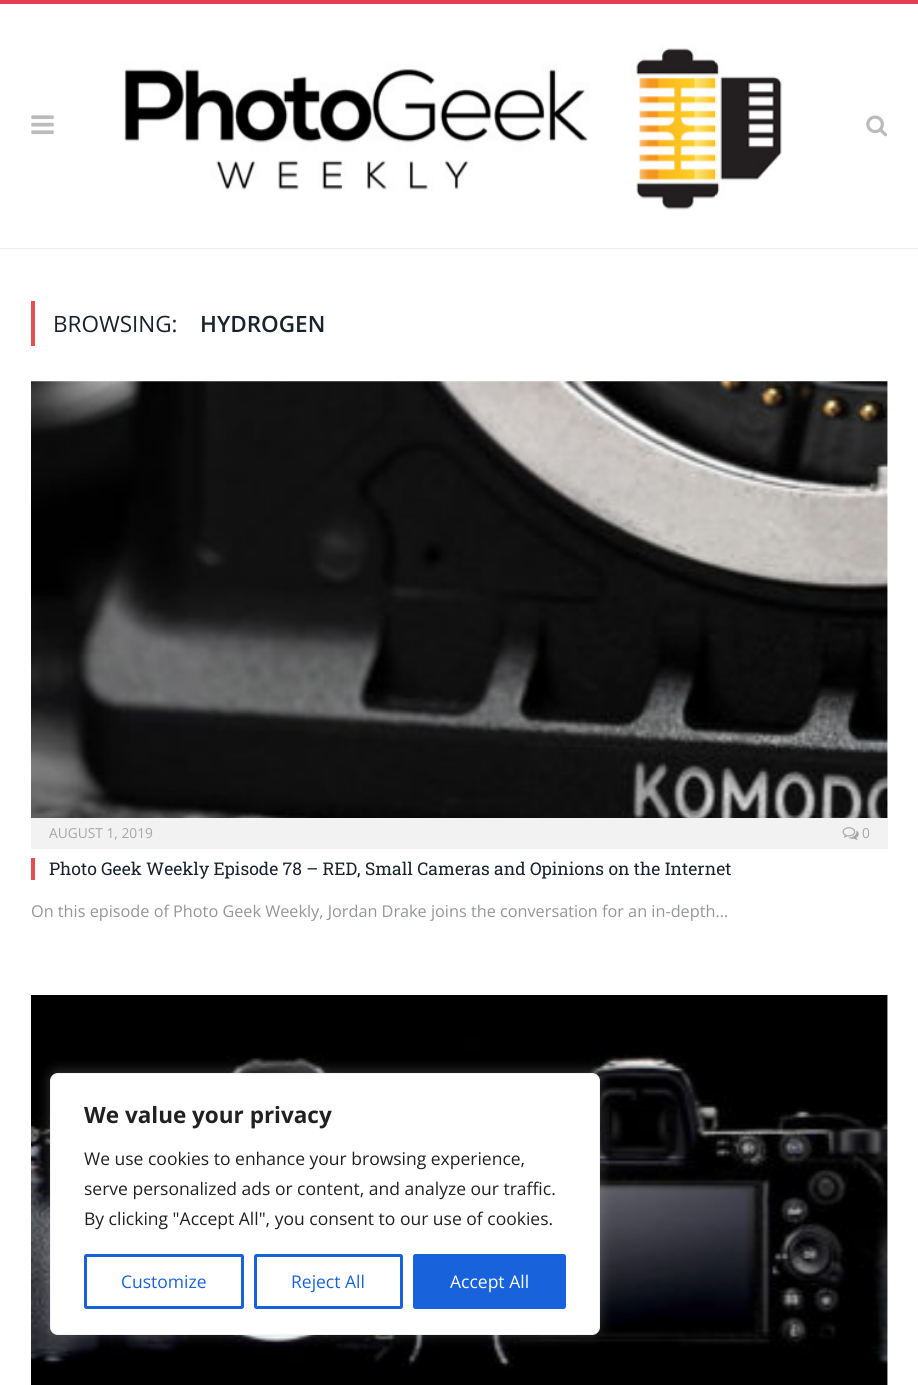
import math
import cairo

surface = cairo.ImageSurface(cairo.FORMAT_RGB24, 918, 1385)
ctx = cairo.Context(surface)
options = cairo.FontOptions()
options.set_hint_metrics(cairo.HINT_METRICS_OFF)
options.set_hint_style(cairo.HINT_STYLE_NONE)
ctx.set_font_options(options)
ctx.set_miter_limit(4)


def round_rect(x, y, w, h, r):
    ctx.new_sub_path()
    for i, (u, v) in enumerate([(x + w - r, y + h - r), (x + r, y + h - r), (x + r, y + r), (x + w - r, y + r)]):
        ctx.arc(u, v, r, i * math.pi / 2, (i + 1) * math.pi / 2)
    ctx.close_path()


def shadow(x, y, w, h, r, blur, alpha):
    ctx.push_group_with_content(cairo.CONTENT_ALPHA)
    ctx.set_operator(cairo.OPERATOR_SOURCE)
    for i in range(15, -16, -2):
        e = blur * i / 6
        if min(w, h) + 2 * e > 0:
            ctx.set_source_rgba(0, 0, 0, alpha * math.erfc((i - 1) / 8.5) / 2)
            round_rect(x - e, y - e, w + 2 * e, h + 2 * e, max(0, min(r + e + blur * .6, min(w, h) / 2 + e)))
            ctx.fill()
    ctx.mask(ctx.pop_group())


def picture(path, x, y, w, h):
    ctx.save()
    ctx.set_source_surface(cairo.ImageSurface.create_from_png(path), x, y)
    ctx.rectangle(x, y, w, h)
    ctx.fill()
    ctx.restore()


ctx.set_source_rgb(1, 1, 1)
ctx.paint()
ctx.set_source_rgb(0.898, 0.243, 0.329)
ctx.rectangle(0, 0, 918, 4)
ctx.fill()
ctx.set_source_rgb(0.933, 0.933, 0.933)
ctx.rectangle(0, 248, 918, 1)
ctx.fill()
picture("img1.png", 31, 115, 23, 20)
picture("img2.png", 124, 44, 658, 166)
picture("img3.png", 866, 115, 22, 22)
ctx.set_source_rgb(0.898, 0.306, 0.325)
ctx.rectangle(31, 301, 4, 45)
ctx.fill()
ctx.select_font_face("Open Sans")
ctx.set_font_size(22.5)
ctx.set_source_rgb(0.098, 0.137, 0.176)
ctx.move_to(53, 332)
ctx.show_text("BROWSING:")
ctx.select_font_face("Open Sans SemiBold")
ctx.move_to(200, 332)
ctx.show_text("HYDROGEN")
picture("img4.png", 31, 381, 857, 437)
ctx.set_source_rgb(0.949, 0.949, 0.949)
ctx.rectangle(31, 818, 857, 31)
ctx.fill()
ctx.select_font_face("Open Sans")
ctx.set_font_size(13.75)
ctx.set_source_rgb(0.651, 0.651, 0.651)
ctx.move_to(49, 838)
ctx.show_text("AUGUST 1, 2019")
picture("img5.png", 842, 827, 17, 13)
ctx.move_to(862, 838)
ctx.show_text("0")
ctx.set_source_rgb(0.898, 0.306, 0.325)
ctx.rectangle(31, 858, 4, 22)
ctx.fill()
ctx.select_font_face("Roboto Slab")
ctx.set_font_size(17.5)
ctx.set_source_rgb(0.098, 0.137, 0.176)
ctx.move_to(49, 875)
ctx.show_text("Photo Geek Weekly Episode 78 – RED, Small Cameras and Opinions on the Internet")
ctx.select_font_face("Open Sans")
ctx.set_font_size(16.25)
ctx.set_source_rgb(0.58, 0.588, 0.592)
ctx.move_to(31, 917)
ctx.show_text("On this episode of Photo Geek Weekly, Jordan Drake joins the conversation for an in-depth…")
picture("img6.png", 31, 995, 857, 390)
ctx.set_source_rgb(0.675, 0.671, 0.671)
shadow(50, 1071, 550, 263, 8, 6, 0.3)
ctx.set_source_rgb(1, 1, 1)
round_rect(50.5, 1073.5, 549, 261, 7.5)
ctx.fill_preserve()
ctx.set_source_rgb(0.957, 0.957, 0.957)
ctx.set_line_width(1)
ctx.stroke()
ctx.select_font_face("Open Sans", cairo.FONT_SLANT_NORMAL, cairo.FONT_WEIGHT_BOLD)
ctx.set_font_size(22.5)
ctx.set_source_rgb(0.129, 0.129, 0.129)
ctx.move_to(84, 1123)
ctx.show_text("We value your privacy")
ctx.select_font_face("Open Sans")
ctx.set_font_size(17.5)
ctx.move_to(84, 1165)
ctx.show_text("We use cookies to enhance your browsing experience,")
ctx.move_to(84, 1195)
ctx.show_text("serve personalized ads or content, and analyze our traffic.")
ctx.move_to(84, 1225)
ctx.show_text("By clicking \"Accept All\", you consent to our use of cookies.")
round_rect(85.5, 1255.5, 157, 52, 1)
ctx.set_source_rgb(0.094, 0.388, 0.863)
ctx.set_line_width(3)
ctx.stroke()
ctx.move_to(121, 1288)
ctx.show_text("Customize")
round_rect(255.5, 1255.5, 146, 52, 1)
ctx.stroke()
ctx.move_to(291, 1288)
ctx.show_text("Reject All")
round_rect(414.5, 1255.5, 150, 52, 1)
ctx.fill_preserve()
ctx.stroke()
ctx.set_source_rgb(1, 1, 1)
ctx.move_to(450, 1288)
ctx.show_text("Accept All")
surface.write_to_png("page.png")
